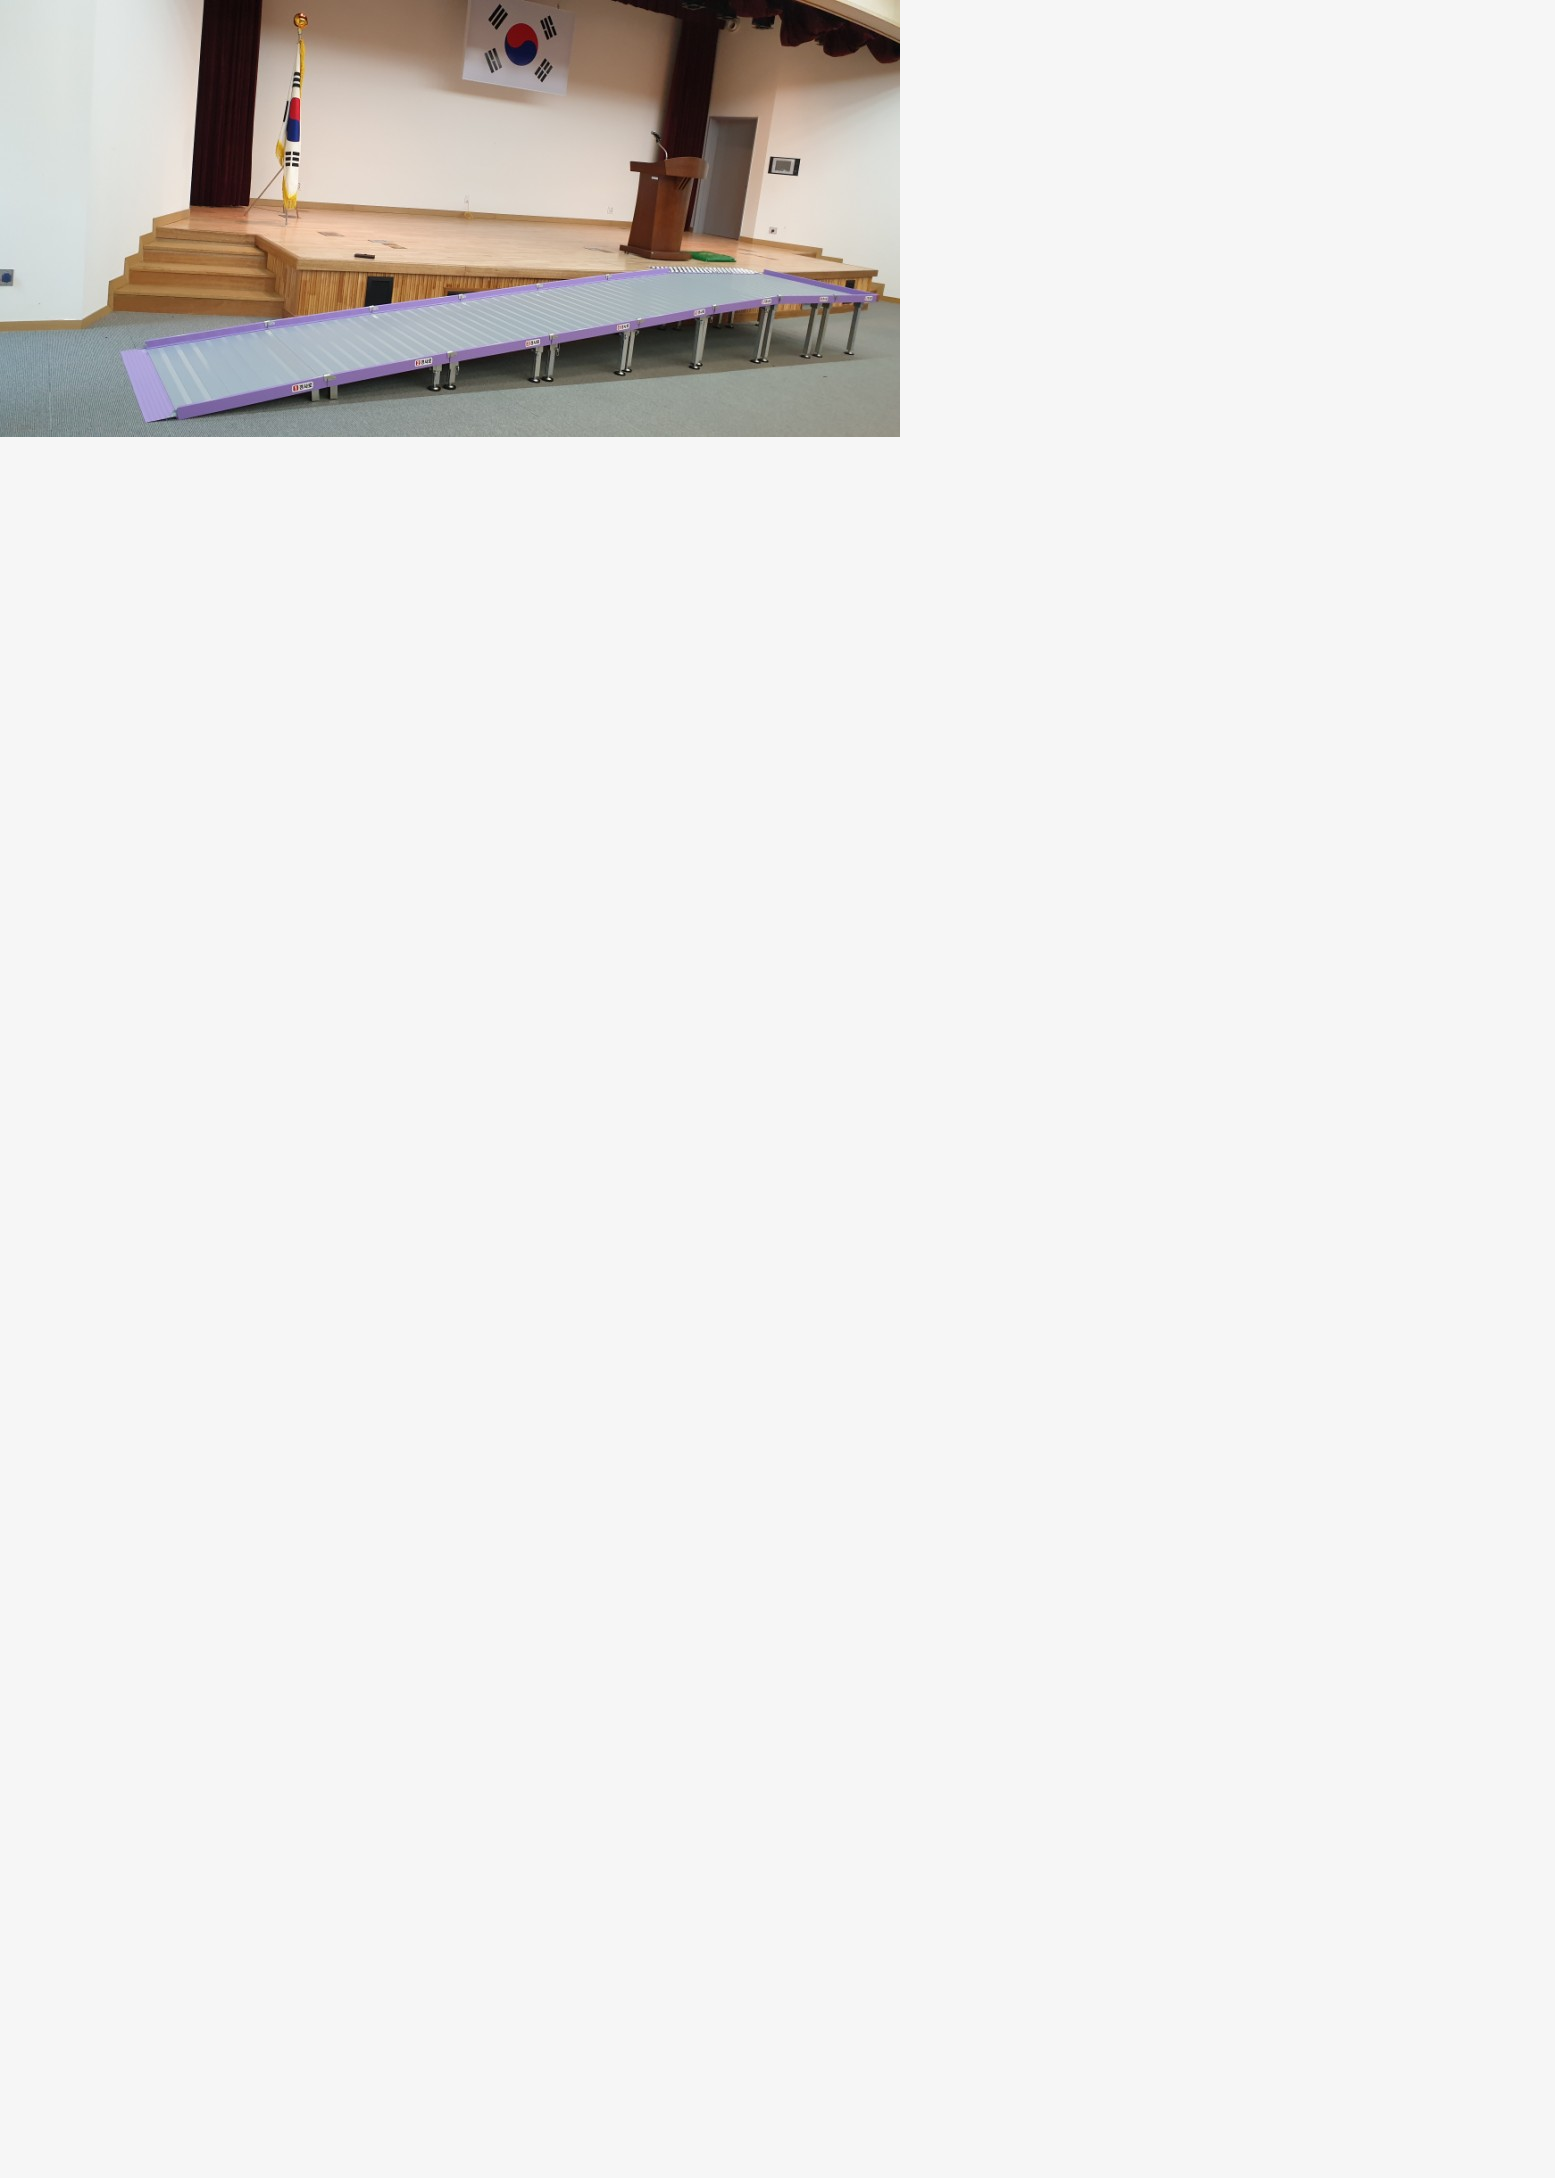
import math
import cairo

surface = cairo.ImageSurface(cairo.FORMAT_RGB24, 1555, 2178)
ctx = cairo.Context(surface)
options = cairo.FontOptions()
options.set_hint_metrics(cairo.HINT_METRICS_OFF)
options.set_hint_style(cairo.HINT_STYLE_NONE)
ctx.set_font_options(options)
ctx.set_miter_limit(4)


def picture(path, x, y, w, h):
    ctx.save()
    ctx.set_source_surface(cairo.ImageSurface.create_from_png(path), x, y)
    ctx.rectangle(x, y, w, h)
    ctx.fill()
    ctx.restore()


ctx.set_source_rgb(0.961, 0.961, 0.961)
ctx.paint()
picture("img1.png", 0, 0, 900, 437)
surface.write_to_png("page.png")
